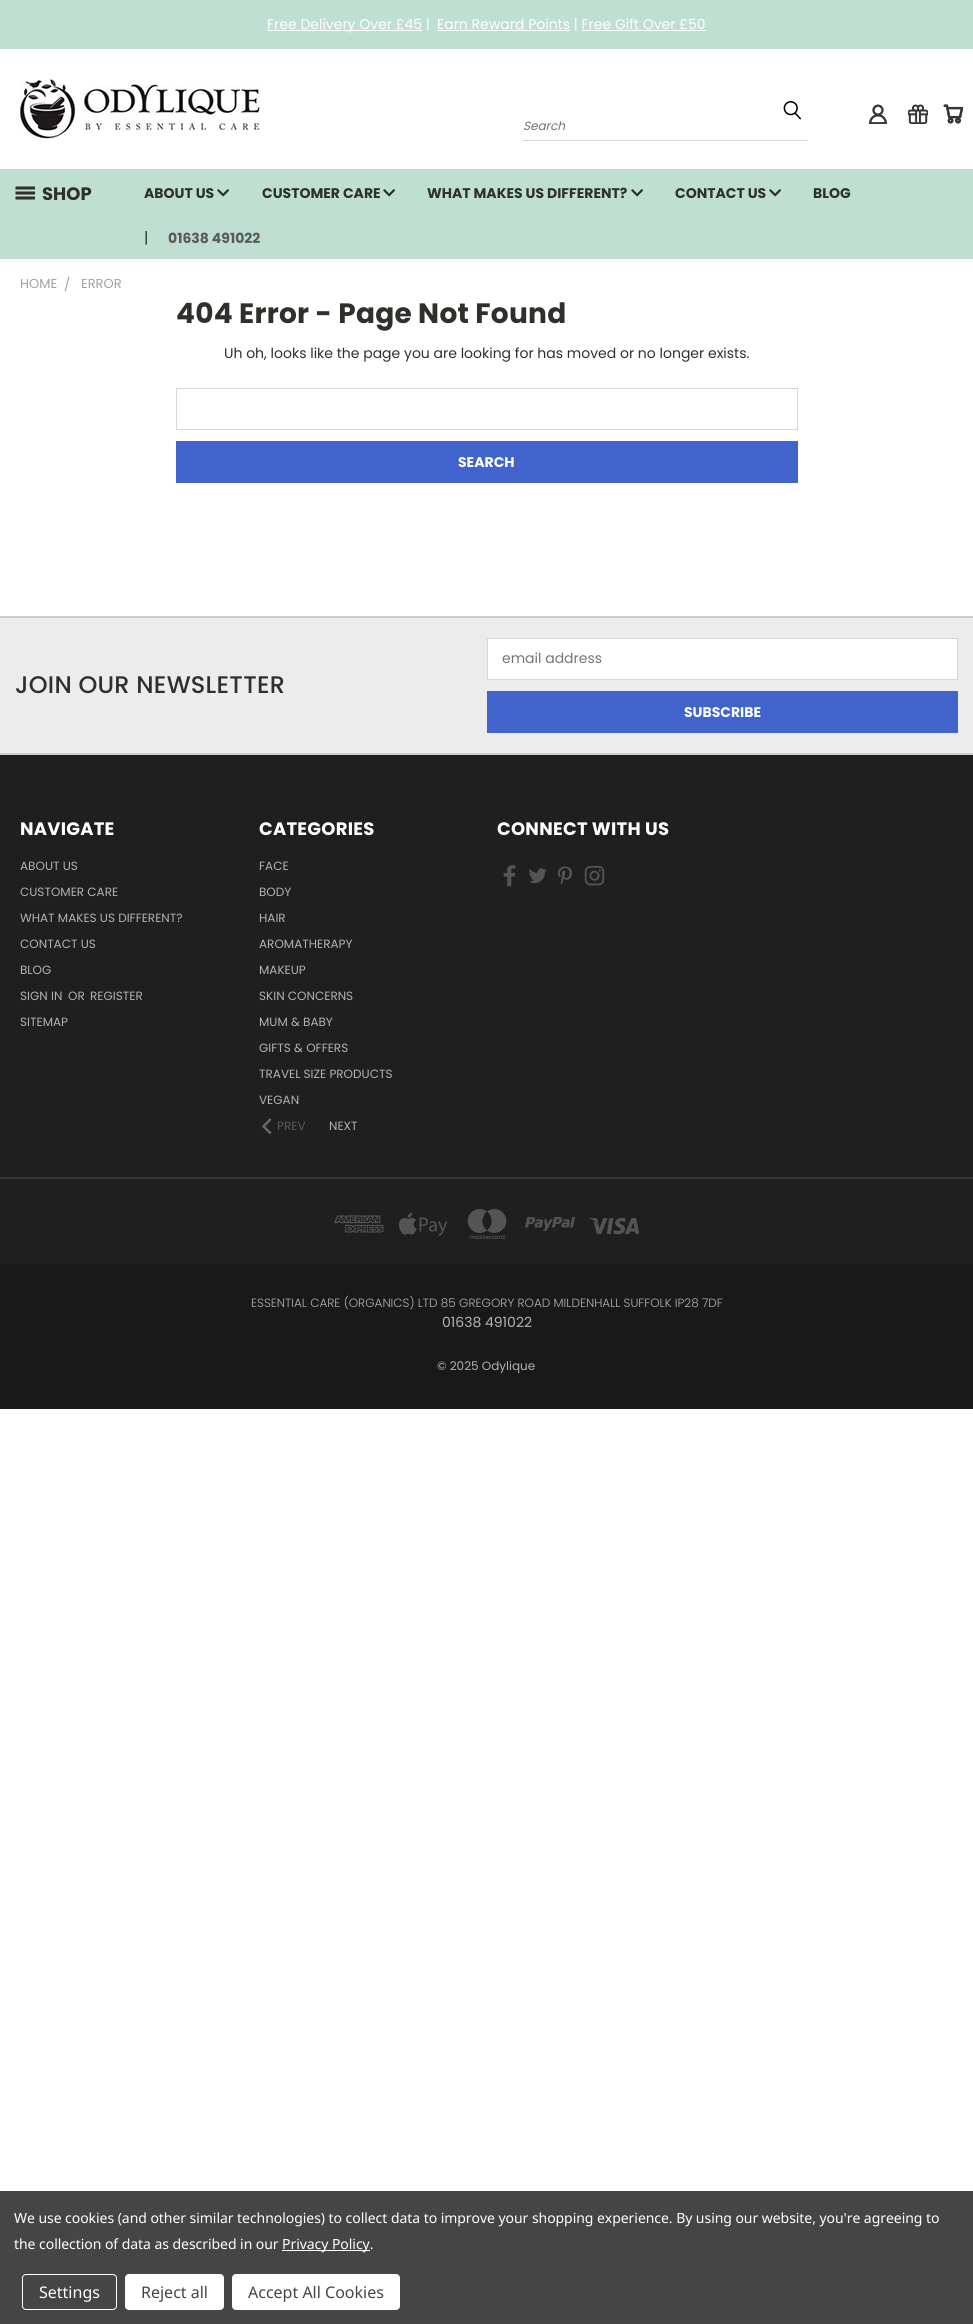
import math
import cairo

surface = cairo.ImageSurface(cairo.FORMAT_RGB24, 973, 2324)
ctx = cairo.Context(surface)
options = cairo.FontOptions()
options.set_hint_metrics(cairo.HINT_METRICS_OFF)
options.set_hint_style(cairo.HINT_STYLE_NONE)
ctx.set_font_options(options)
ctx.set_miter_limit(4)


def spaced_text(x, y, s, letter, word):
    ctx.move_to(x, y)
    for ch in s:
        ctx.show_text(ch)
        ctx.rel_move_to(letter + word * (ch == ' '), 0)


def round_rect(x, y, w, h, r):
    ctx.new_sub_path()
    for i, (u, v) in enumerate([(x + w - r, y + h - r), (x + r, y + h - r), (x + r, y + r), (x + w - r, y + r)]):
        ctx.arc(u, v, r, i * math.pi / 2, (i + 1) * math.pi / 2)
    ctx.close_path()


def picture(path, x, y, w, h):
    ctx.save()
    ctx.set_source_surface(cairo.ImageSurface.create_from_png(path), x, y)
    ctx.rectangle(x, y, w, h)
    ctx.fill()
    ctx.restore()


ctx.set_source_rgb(1, 1, 1)
ctx.paint()
ctx.set_source_rgb(0.745, 0.875, 0.82)
ctx.rectangle(0, 0, 973, 49)
ctx.fill()
ctx.set_source_rgb(1, 1, 1)
ctx.rectangle(267, 30, 155, 1)
ctx.fill()
ctx.select_font_face("Poppins")
ctx.set_font_size(14)
ctx.move_to(267, 29)
ctx.show_text("Free Delivery Over £45 |")
ctx.rectangle(437, 30, 133, 1)
ctx.fill()
ctx.move_to(437, 29)
ctx.show_text("Earn Reward Points | Free Gift Over £50")
ctx.rectangle(582, 30, 124, 1)
ctx.fill()
picture("img1.png", 15, 79, 245, 60)
picture("img2.png", 869, 104, 18, 20)
picture("img3.png", 908, 104, 20, 20)
picture("img4.png", 943, 104, 20, 20)
picture("img5.png", 783, 101, 18, 19)
ctx.set_source_rgb(0.843, 0.843, 0.843)
ctx.rectangle(523, 140, 285, 1)
ctx.fill()
ctx.select_font_face("Poppins", cairo.FONT_SLANT_ITALIC)
ctx.set_font_size(12)
ctx.set_source_rgb(0.439, 0.439, 0.431)
ctx.move_to(523, 130)
ctx.show_text("Search")
ctx.set_source_rgb(0.745, 0.875, 0.82)
ctx.rectangle(0, 169, 973, 90)
ctx.fill()
picture("img6.png", 15, 186, 20, 14)
ctx.select_font_face("Poppins", cairo.FONT_SLANT_NORMAL, cairo.FONT_WEIGHT_BOLD)
ctx.set_font_size(18)
ctx.set_source_rgb(0.184, 0.184, 0.169)
ctx.move_to(42, 200)
ctx.show_text("SHOP")
ctx.set_font_size(14)
ctx.move_to(144, 198)
ctx.show_text("ABOUT US")
picture("img7.png", 217, 189, 12, 8)
ctx.move_to(262, 198)
ctx.show_text("CUSTOMER CARE")
picture("img7.png", 383, 189, 12, 8)
ctx.move_to(427, 198)
ctx.show_text("WHAT MAKES US DIFFERENT?")
picture("img7.png", 631, 189, 12, 8)
ctx.move_to(675, 198)
ctx.show_text("CONTACT US")
picture("img7.png", 769, 189, 12, 8)
ctx.move_to(813, 198)
ctx.show_text("BLOG")
ctx.select_font_face("Poppins")
ctx.set_font_size(15)
ctx.move_to(144, 243)
ctx.show_text("|")
ctx.select_font_face("Poppins", cairo.FONT_SLANT_NORMAL, cairo.FONT_WEIGHT_BOLD)
ctx.set_font_size(14)
ctx.set_source_rgb(0.353, 0.353, 0.353)
ctx.move_to(168, 243)
ctx.show_text("01638 491022")
ctx.select_font_face("Poppins")
ctx.set_font_size(13)
ctx.set_source_rgb(0.635, 0.635, 0.635)
ctx.move_to(20, 288)
ctx.show_text("HOME")
ctx.move_to(64, 289)
ctx.show_text("/")
ctx.move_to(81, 288)
ctx.show_text("ERROR")
ctx.select_font_face("Poppins", cairo.FONT_SLANT_NORMAL, cairo.FONT_WEIGHT_BOLD)
ctx.set_font_size(28)
ctx.set_source_rgb(0.184, 0.184, 0.169)
spaced_text(176, 323, "404 Error - Page Not Found", 0.25, 0)
ctx.select_font_face("Poppins")
ctx.set_font_size(14)
ctx.move_to(224, 358)
ctx.show_text("Uh oh, looks like the page you are looking for has moved or no longer exists.")
ctx.rectangle(176.5, 388.5, 621, 41)
ctx.set_source_rgb(0.843, 0.843, 0.843)
ctx.set_line_width(1)
ctx.stroke()
ctx.set_source_rgb(0.251, 0.388, 0.8)
ctx.rectangle(176, 441, 622, 42)
ctx.fill()
ctx.select_font_face("Poppins", cairo.FONT_SLANT_NORMAL, cairo.FONT_WEIGHT_BOLD)
ctx.set_source_rgb(1, 1, 1)
ctx.move_to(458, 467)
ctx.show_text("SEARCH")
ctx.set_source_rgb(0.922, 0.922, 0.922)
ctx.rectangle(0, 618, 973, 135)
ctx.fill()
ctx.set_source_rgb(0.804, 0.8, 0.8)
ctx.rectangle(0, 616, 973, 2)
ctx.fill()
ctx.select_font_face("Poppins Medium")
ctx.set_font_size(24)
ctx.set_source_rgb(0.184, 0.184, 0.169)
spaced_text(15, 693, "JOIN OUR NEWSLETTER", 0.25, 0)
ctx.set_source_rgb(1, 1, 1)
ctx.rectangle(487.5, 638.5, 470, 41)
ctx.fill_preserve()
ctx.set_source_rgb(0.843, 0.843, 0.843)
ctx.stroke()
ctx.select_font_face("Poppins")
ctx.set_font_size(14)
ctx.set_source_rgb(0.459, 0.459, 0.459)
ctx.move_to(502, 663)
ctx.show_text("email address")
ctx.set_source_rgb(0.251, 0.388, 0.8)
ctx.rectangle(487, 691, 471, 42)
ctx.fill()
ctx.select_font_face("Poppins", cairo.FONT_SLANT_NORMAL, cairo.FONT_WEIGHT_BOLD)
ctx.set_source_rgb(1, 1, 1)
ctx.move_to(684, 717)
ctx.show_text("SUBSCRIBE")
ctx.set_source_rgb(0.122, 0.122, 0.122)
ctx.rectangle(0, 755, 973, 509)
ctx.fill()
ctx.set_source_rgb(0.804, 0.8, 0.8)
ctx.rectangle(0, 753, 973, 2)
ctx.fill()
ctx.set_font_size(18)
ctx.set_source_rgb(1, 1, 1)
spaced_text(20, 835, "NAVIGATE", 0.25, 0)
ctx.select_font_face("Poppins")
ctx.set_font_size(12)
ctx.set_source_rgb(0.698, 0.698, 0.698)
ctx.move_to(20, 870)
ctx.show_text("ABOUT US")
ctx.move_to(20, 896)
ctx.show_text("CUSTOMER CARE")
ctx.move_to(20, 922)
ctx.show_text("WHAT MAKES US DIFFERENT?")
ctx.move_to(20, 948)
ctx.show_text("CONTACT US")
ctx.move_to(20, 974)
ctx.show_text("BLOG")
ctx.move_to(20, 1000)
ctx.show_text("SIGN IN")
ctx.move_to(68, 1000)
ctx.show_text("OR")
ctx.move_to(90, 1000)
ctx.show_text("REGISTER")
ctx.move_to(20, 1026)
ctx.show_text("SITEMAP")
ctx.select_font_face("Poppins", cairo.FONT_SLANT_NORMAL, cairo.FONT_WEIGHT_BOLD)
ctx.set_font_size(18)
ctx.set_source_rgb(1, 1, 1)
spaced_text(259, 835, "CATEGORIES", 0.25, 0)
ctx.select_font_face("Poppins")
ctx.set_font_size(12)
ctx.set_source_rgb(0.698, 0.698, 0.698)
ctx.move_to(259, 870)
ctx.show_text("FACE")
ctx.move_to(259, 896)
ctx.show_text("BODY")
ctx.move_to(259, 922)
ctx.show_text("HAIR")
ctx.move_to(259, 948)
ctx.show_text("AROMATHERAPY")
ctx.move_to(259, 974)
ctx.show_text("MAKEUP")
ctx.move_to(259, 1000)
ctx.show_text("SKIN CONCERNS")
ctx.move_to(259, 1026)
ctx.show_text("MUM & BABY")
ctx.move_to(259, 1052)
ctx.show_text("GIFTS & OFFERS")
ctx.move_to(259, 1078)
ctx.show_text("TRAVEL SIZE PRODUCTS")
ctx.move_to(259, 1104)
ctx.show_text("VEGAN")
picture("img8.png", 262, 1118, 10, 16)
ctx.set_source_rgb(0.353, 0.353, 0.353)
ctx.move_to(277, 1130)
ctx.show_text("PREV")
ctx.set_source_rgb(0.698, 0.698, 0.698)
ctx.move_to(329, 1130)
ctx.show_text("NEXT")
ctx.select_font_face("Poppins", cairo.FONT_SLANT_NORMAL, cairo.FONT_WEIGHT_BOLD)
ctx.set_font_size(18)
ctx.set_source_rgb(1, 1, 1)
spaced_text(497, 835, "CONNECT WITH US", 0.25, 0)
picture("img9.png", 503, 865, 13, 22)
picture("img10.png", 529, 868, 18, 16)
picture("img11.png", 557, 866, 15, 19)
picture("img12.png", 584, 865, 21, 21)
ctx.set_source_rgb(0.212, 0.212, 0.212)
ctx.rectangle(0, 1177, 973, 2)
ctx.fill()
picture("img13.png", 334, 1215, 50, 18)
picture("img14.png", 399, 1212, 49, 24)
picture("img15.png", 467, 1209, 40, 30)
picture("img16.png", 525, 1217, 50, 14)
picture("img17.png", 589, 1217, 50, 18)
ctx.set_source_rgb(0.098, 0.098, 0.098)
ctx.rectangle(0, 1264, 973, 145)
ctx.fill()
ctx.select_font_face("Poppins Light")
ctx.set_font_size(12)
ctx.set_source_rgb(0.698, 0.698, 0.698)
ctx.move_to(251, 1307)
ctx.show_text("ESSENTIAL CARE (ORGANICS) LTD 85 GREGORY ROAD MILDENHALL SUFFOLK IP28 7DF")
ctx.select_font_face("Poppins")
ctx.set_font_size(14)
ctx.move_to(442, 1327)
ctx.show_text("01638 491022")
ctx.set_font_size(12)
ctx.move_to(437, 1370)
ctx.show_text("© 2025 Odylique")
ctx.set_source_rgb(0.271, 0.271, 0.271)
ctx.rectangle(0, 2191, 973, 133)
ctx.fill()
ctx.select_font_face("Noto Sans")
ctx.set_font_size(14)
ctx.set_source_rgb(1, 1, 1)
spaced_text(14, 2223, "We use cookies (and other similar technologies) to collect data to improve your shopping experience. By using our website, you're agreeing to", -0.05, 0)
spaced_text(14, 2249, "the collection of data as described in our", -0.05, 0)
ctx.rectangle(282, 2250, 88, 1)
ctx.fill()
spaced_text(282, 2249, "Privacy Policy.", -0.05, 0)
round_rect(22.5, 2274.5, 94, 35, 3.5)
ctx.stroke()
ctx.set_font_size(16)
ctx.move_to(39, 2298)
ctx.show_text("Settings")
round_rect(125, 2274, 99, 36, 4)
ctx.fill()
ctx.set_source_rgb(0.271, 0.271, 0.271)
ctx.move_to(141, 2298)
ctx.show_text("Reject all")
ctx.set_source_rgb(1, 1, 1)
round_rect(232, 2274, 168, 36, 4)
ctx.fill()
ctx.set_source_rgb(0.271, 0.271, 0.271)
ctx.move_to(248, 2298)
ctx.show_text("Accept All Cookies")
surface.write_to_png("page.png")
